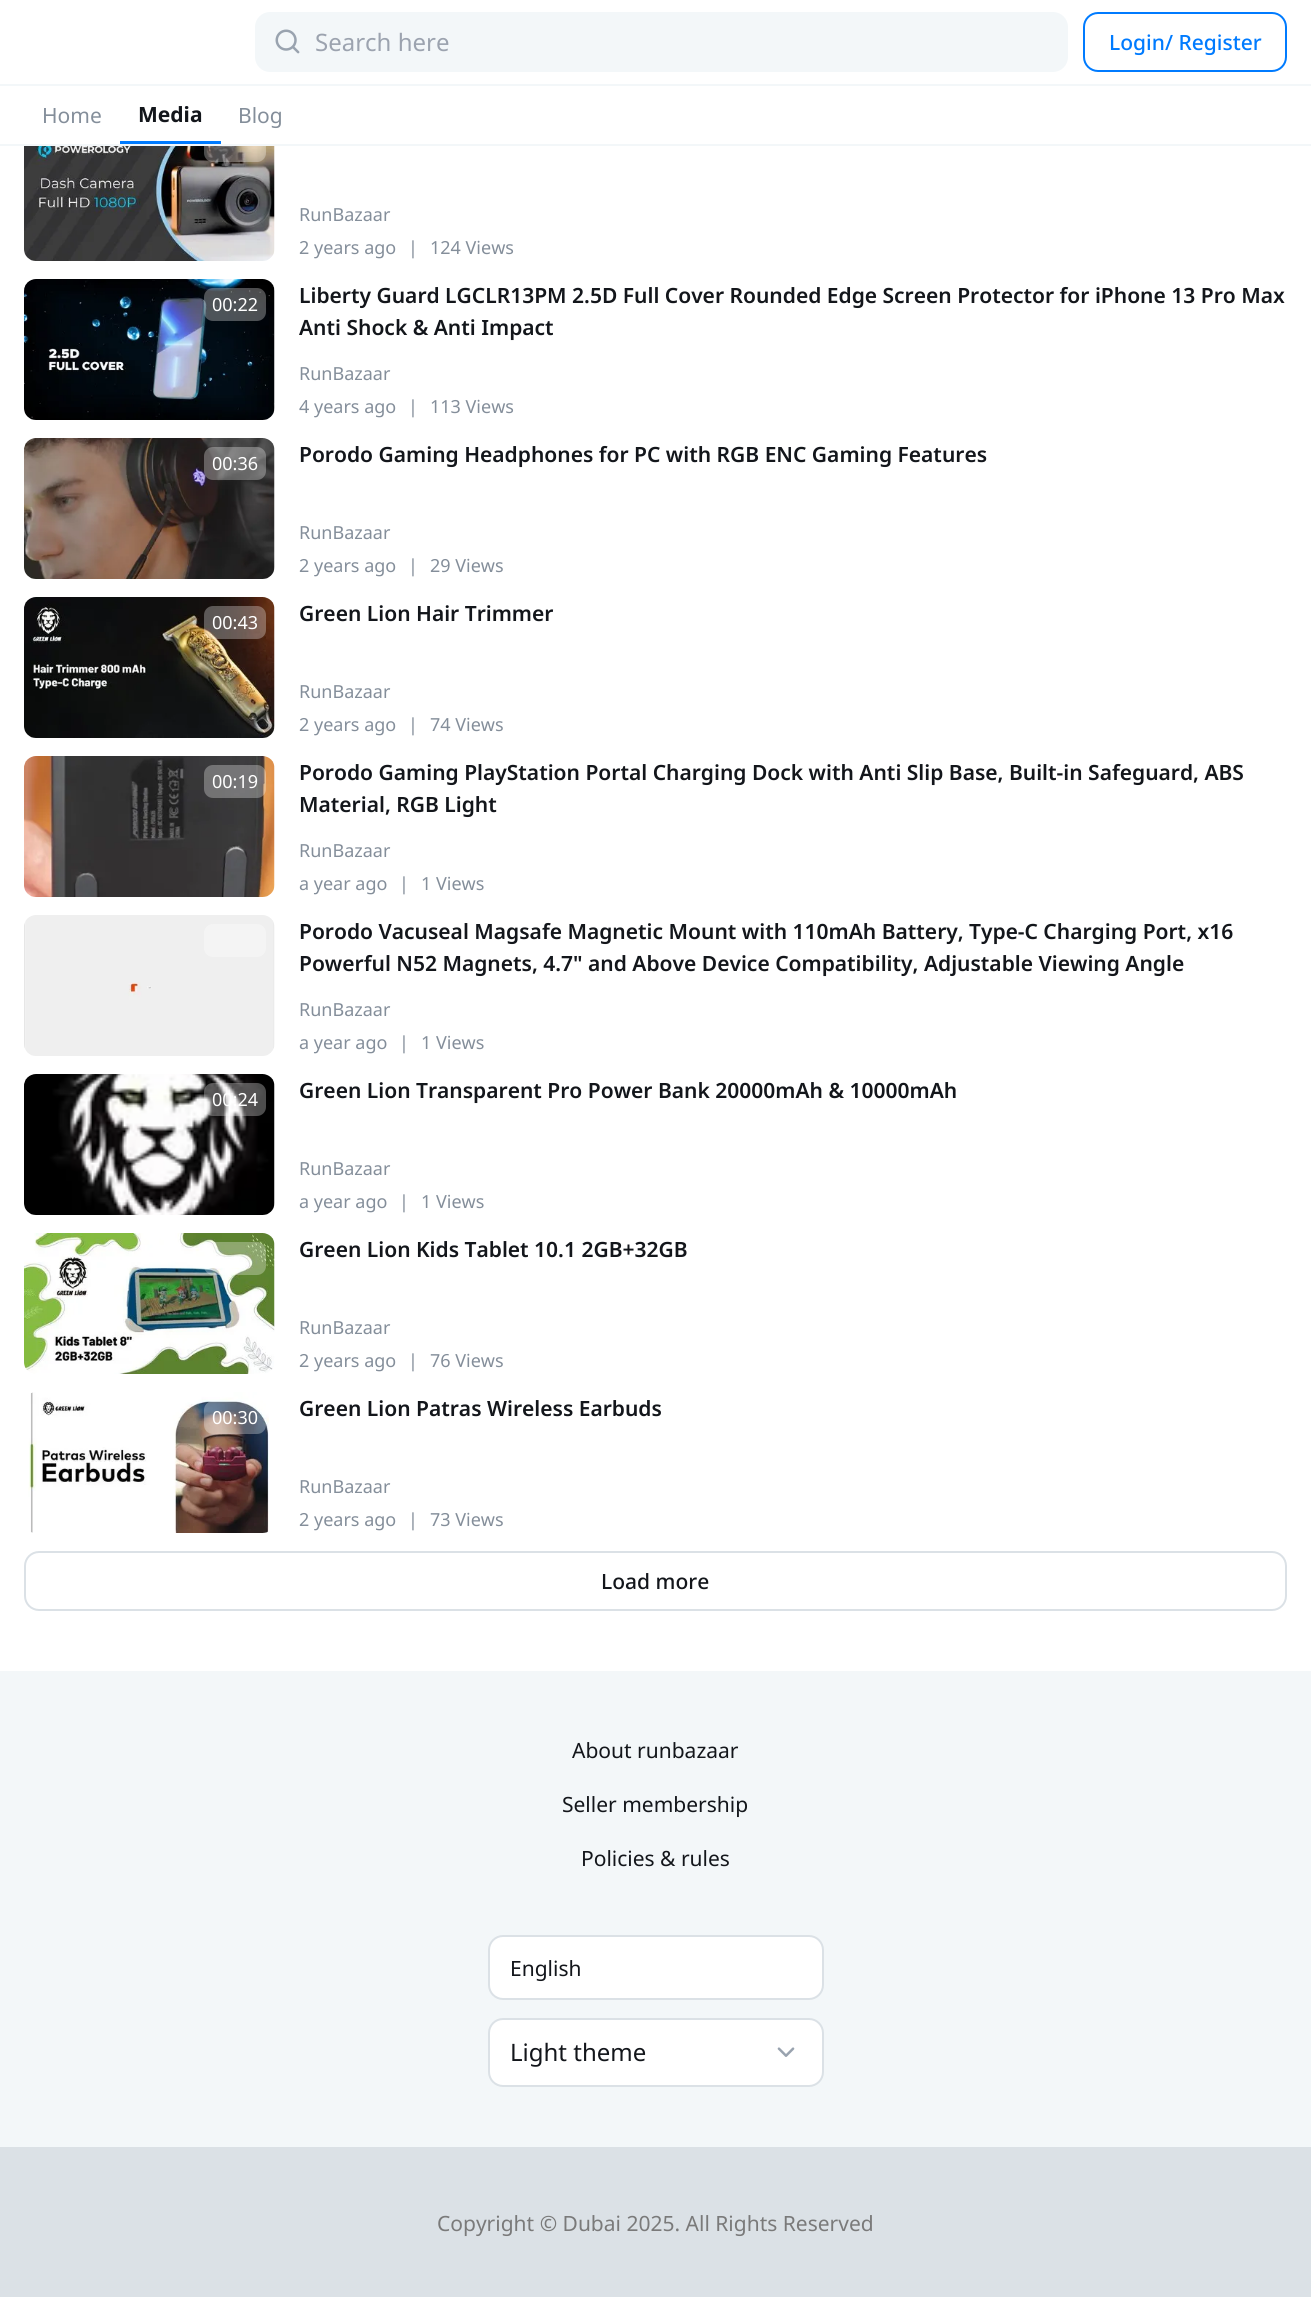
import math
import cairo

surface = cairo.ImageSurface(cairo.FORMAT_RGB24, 1311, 2297)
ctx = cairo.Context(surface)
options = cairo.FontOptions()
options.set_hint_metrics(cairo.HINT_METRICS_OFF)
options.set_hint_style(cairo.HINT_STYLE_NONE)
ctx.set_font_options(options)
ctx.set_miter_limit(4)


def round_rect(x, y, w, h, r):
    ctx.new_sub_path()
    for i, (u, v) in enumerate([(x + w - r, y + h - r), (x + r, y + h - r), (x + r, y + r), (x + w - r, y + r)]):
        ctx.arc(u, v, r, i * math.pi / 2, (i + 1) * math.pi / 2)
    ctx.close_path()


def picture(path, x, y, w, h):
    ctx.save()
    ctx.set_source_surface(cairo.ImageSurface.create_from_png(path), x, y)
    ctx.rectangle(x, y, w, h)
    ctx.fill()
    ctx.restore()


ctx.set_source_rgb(1, 1, 1)
ctx.paint()
picture("img2.png", 24, 146, 251, 115)
ctx.set_source_rgba(1, 1, 1, 0.3)
round_rect(204, 129, 62, 33, 9)
ctx.fill()
ctx.set_source_rgb(0.953, 0.965, 0.976)
ctx.rectangle(0, 144, 1311, 2)
ctx.fill()
round_rect(255, 12, 813, 60, 15)
ctx.fill()
picture("img1.png", 275, 29, 25, 25)
ctx.select_font_face("Noto Sans")
ctx.set_font_size(24)
ctx.set_source_rgb(0.612, 0.639, 0.686)
ctx.move_to(315, 51)
ctx.show_text("Search here")
round_rect(1084, 13, 202, 58, 14)
ctx.set_source_rgb(0, 0.482, 1)
ctx.stroke()
ctx.select_font_face("Noto Sans Medium")
ctx.set_font_size(21)
ctx.move_to(1109, 50)
ctx.show_text("Login/ Register")
ctx.set_source_rgb(0.953, 0.965, 0.976)
ctx.rectangle(0, 84, 1311, 2)
ctx.fill()
ctx.select_font_face("Noto Sans")
ctx.set_source_rgb(0.518, 0.557, 0.604)
ctx.move_to(42, 123)
ctx.show_text("Home")
ctx.set_source_rgb(0, 0.482, 1)
ctx.rectangle(120, 141, 101, 3)
ctx.fill()
ctx.select_font_face("Noto Sans", cairo.FONT_SLANT_NORMAL, cairo.FONT_WEIGHT_BOLD)
ctx.set_source_rgb(0.075, 0.086, 0.106)
ctx.move_to(138, 122)
ctx.show_text("Media")
ctx.select_font_face("Noto Sans")
ctx.set_source_rgb(0.518, 0.557, 0.604)
ctx.move_to(238, 123)
ctx.show_text("Blog")
ctx.set_font_size(18)
ctx.move_to(299, 221)
ctx.show_text("RunBazaar")
ctx.move_to(299, 254)
ctx.show_text("2 years ago")
ctx.move_to(408, 254)
ctx.show_text("|")
ctx.move_to(430, 254)
ctx.show_text("124 Views")
picture("img3.png", 24, 279, 251, 141)
ctx.set_source_rgba(1, 1, 1, 0.3)
round_rect(204, 288, 62, 33, 9)
ctx.fill()
ctx.set_source_rgb(1, 1, 1)
ctx.move_to(212, 311)
ctx.show_text("00:22")
ctx.select_font_face("Noto Sans SemiBold")
ctx.set_font_size(21)
ctx.set_source_rgb(0.075, 0.086, 0.106)
ctx.move_to(299, 303)
ctx.show_text("Liberty Guard LGCLR13PM 2.5D Full Cover Rounded Edge Screen Protector for iPhone 13 Pro Max")
ctx.move_to(299, 335)
ctx.show_text("Anti Shock & Anti Impact")
ctx.select_font_face("Noto Sans")
ctx.set_font_size(18)
ctx.set_source_rgb(0.518, 0.557, 0.604)
ctx.move_to(299, 380)
ctx.show_text("RunBazaar")
ctx.move_to(299, 413)
ctx.show_text("4 years ago")
ctx.move_to(408, 413)
ctx.show_text("|")
ctx.move_to(430, 413)
ctx.show_text("113 Views")
picture("img4.png", 24, 438, 251, 141)
ctx.set_source_rgba(1, 1, 1, 0.3)
round_rect(204, 447, 62, 33, 9)
ctx.fill()
ctx.set_source_rgb(1, 1, 1)
ctx.move_to(212, 470)
ctx.show_text("00:36")
ctx.select_font_face("Noto Sans SemiBold")
ctx.set_font_size(21)
ctx.set_source_rgb(0.075, 0.086, 0.106)
ctx.move_to(299, 462)
ctx.show_text("Porodo Gaming Headphones for PC with RGB ENC Gaming Features")
ctx.select_font_face("Noto Sans")
ctx.set_font_size(18)
ctx.set_source_rgb(0.518, 0.557, 0.604)
ctx.move_to(299, 539)
ctx.show_text("RunBazaar")
ctx.move_to(299, 572)
ctx.show_text("2 years ago")
ctx.move_to(408, 572)
ctx.show_text("|")
ctx.move_to(430, 572)
ctx.show_text("29 Views")
picture("img5.png", 24, 597, 251, 141)
ctx.set_source_rgba(1, 1, 1, 0.3)
round_rect(204, 606, 62, 33, 9)
ctx.fill()
ctx.set_source_rgb(1, 1, 1)
ctx.move_to(212, 629)
ctx.show_text("00:43")
ctx.select_font_face("Noto Sans SemiBold")
ctx.set_font_size(21)
ctx.set_source_rgb(0.075, 0.086, 0.106)
ctx.move_to(299, 621)
ctx.show_text("Green Lion Hair Trimmer")
ctx.select_font_face("Noto Sans")
ctx.set_font_size(18)
ctx.set_source_rgb(0.518, 0.557, 0.604)
ctx.move_to(299, 698)
ctx.show_text("RunBazaar")
ctx.move_to(299, 731)
ctx.show_text("2 years ago")
ctx.move_to(408, 731)
ctx.show_text("|")
ctx.move_to(430, 731)
ctx.show_text("74 Views")
picture("img6.png", 24, 756, 251, 141)
ctx.set_source_rgba(1, 1, 1, 0.3)
round_rect(204, 765, 62, 33, 9)
ctx.fill()
ctx.set_source_rgb(1, 1, 1)
ctx.move_to(212, 788)
ctx.show_text("00:19")
ctx.select_font_face("Noto Sans SemiBold")
ctx.set_font_size(21)
ctx.set_source_rgb(0.075, 0.086, 0.106)
ctx.move_to(299, 780)
ctx.show_text("Porodo Gaming PlayStation Portal Charging Dock with Anti Slip Base, Built-in Safeguard, ABS")
ctx.move_to(299, 812)
ctx.show_text("Material, RGB Light")
ctx.select_font_face("Noto Sans")
ctx.set_font_size(18)
ctx.set_source_rgb(0.518, 0.557, 0.604)
ctx.move_to(299, 857)
ctx.show_text("RunBazaar")
ctx.move_to(299, 890)
ctx.show_text("a year ago")
ctx.move_to(399, 890)
ctx.show_text("|")
ctx.move_to(421, 890)
ctx.show_text("1 Views")
picture("img7.png", 24, 915, 251, 141)
ctx.set_source_rgb(0.957, 0.957, 0.957)
round_rect(204, 924, 62, 33, 9)
ctx.fill()
ctx.select_font_face("Noto Sans SemiBold")
ctx.set_font_size(21)
ctx.set_source_rgb(0.075, 0.086, 0.106)
ctx.move_to(299, 939)
ctx.show_text("Porodo Vacuseal Magsafe Magnetic Mount with 110mAh Battery, Туре-С Charging Port, x16")
ctx.move_to(299, 971)
ctx.show_text("Powerful N52 Magnets, 4.7\" and Above Device Compatibility, Adjustable Viewing Angle")
ctx.select_font_face("Noto Sans")
ctx.set_font_size(18)
ctx.set_source_rgb(0.518, 0.557, 0.604)
ctx.move_to(299, 1016)
ctx.show_text("RunBazaar")
ctx.move_to(299, 1049)
ctx.show_text("a year ago")
ctx.move_to(399, 1049)
ctx.show_text("|")
ctx.move_to(421, 1049)
ctx.show_text("1 Views")
picture("img8.png", 24, 1074, 251, 141)
ctx.set_source_rgba(1, 1, 1, 0.3)
round_rect(204, 1083, 62, 33, 9)
ctx.fill()
ctx.set_source_rgb(1, 1, 1)
ctx.move_to(212, 1106)
ctx.show_text("00:24")
ctx.select_font_face("Noto Sans SemiBold")
ctx.set_font_size(21)
ctx.set_source_rgb(0.075, 0.086, 0.106)
ctx.move_to(299, 1098)
ctx.show_text("Green Lion Transparent Pro Power Bank 20000mAh & 10000mAh")
ctx.select_font_face("Noto Sans")
ctx.set_font_size(18)
ctx.set_source_rgb(0.518, 0.557, 0.604)
ctx.move_to(299, 1175)
ctx.show_text("RunBazaar")
ctx.move_to(299, 1208)
ctx.show_text("a year ago")
ctx.move_to(399, 1208)
ctx.show_text("|")
ctx.move_to(421, 1208)
ctx.show_text("1 Views")
picture("img9.png", 24, 1233, 251, 141)
ctx.set_source_rgba(1, 1, 1, 0.3)
round_rect(204, 1242, 62, 33, 9)
ctx.fill()
ctx.select_font_face("Noto Sans SemiBold")
ctx.set_font_size(21)
ctx.set_source_rgb(0.075, 0.086, 0.106)
ctx.move_to(299, 1257)
ctx.show_text("Green Lion Kids Tablet 10.1 2GB+32GB")
ctx.select_font_face("Noto Sans")
ctx.set_font_size(18)
ctx.set_source_rgb(0.518, 0.557, 0.604)
ctx.move_to(299, 1334)
ctx.show_text("RunBazaar")
ctx.move_to(299, 1367)
ctx.show_text("2 years ago")
ctx.move_to(408, 1367)
ctx.show_text("|")
ctx.move_to(430, 1367)
ctx.show_text("76 Views")
picture("img10.png", 28, 1392, 241, 141)
ctx.set_source_rgba(1, 1, 1, 0.3)
round_rect(204, 1401, 62, 33, 9)
ctx.fill()
ctx.set_source_rgb(1, 1, 1)
ctx.move_to(212, 1424)
ctx.show_text("00:30")
ctx.select_font_face("Noto Sans SemiBold")
ctx.set_font_size(21)
ctx.set_source_rgb(0.075, 0.086, 0.106)
ctx.move_to(299, 1416)
ctx.show_text("Green Lion Patras Wireless Earbuds")
ctx.select_font_face("Noto Sans")
ctx.set_font_size(18)
ctx.set_source_rgb(0.518, 0.557, 0.604)
ctx.move_to(299, 1493)
ctx.show_text("RunBazaar")
ctx.move_to(299, 1526)
ctx.show_text("2 years ago")
ctx.move_to(408, 1526)
ctx.show_text("|")
ctx.move_to(430, 1526)
ctx.show_text("73 Views")
round_rect(25, 1552, 1261, 58, 14)
ctx.set_source_rgb(0.859, 0.882, 0.902)
ctx.stroke()
ctx.select_font_face("Noto Sans Medium")
ctx.set_font_size(21)
ctx.set_source_rgb(0.075, 0.086, 0.106)
ctx.move_to(601, 1589)
ctx.show_text("Load more")
ctx.set_source_rgb(0.953, 0.965, 0.976)
ctx.rectangle(0, 1671, 1311, 476)
ctx.fill()
ctx.select_font_face("Noto Sans")
ctx.set_source_rgb(0.075, 0.086, 0.106)
ctx.move_to(572, 1758)
ctx.show_text("About runbazaar")
ctx.move_to(562, 1812)
ctx.show_text("Seller membership")
ctx.move_to(581, 1866)
ctx.show_text("Policies & rules")
ctx.set_source_rgb(1, 1, 1)
round_rect(489, 1936, 334, 63, 14)
ctx.fill_preserve()
ctx.set_source_rgb(0.859, 0.882, 0.902)
ctx.stroke()
ctx.set_source_rgb(0.075, 0.086, 0.106)
ctx.move_to(510, 1976)
ctx.show_text("English")
ctx.set_source_rgb(1, 1, 1)
round_rect(489, 2019, 334, 67, 14)
ctx.fill_preserve()
ctx.set_source_rgb(0.859, 0.882, 0.902)
ctx.stroke()
ctx.set_font_size(24)
ctx.set_source_rgb(0.075, 0.086, 0.106)
ctx.move_to(510, 2061)
ctx.show_text("Light theme")
picture("img11.png", 777, 2047, 18, 10)
ctx.set_source_rgb(0.859, 0.882, 0.902)
ctx.rectangle(0, 2147, 1311, 150)
ctx.fill()
ctx.set_font_size(21)
ctx.set_source_rgb(0.478, 0.478, 0.478)
ctx.move_to(437, 2231)
ctx.show_text("Copyright © Dubai 2025. All Rights Reserved")
surface.write_to_png("page.png")
